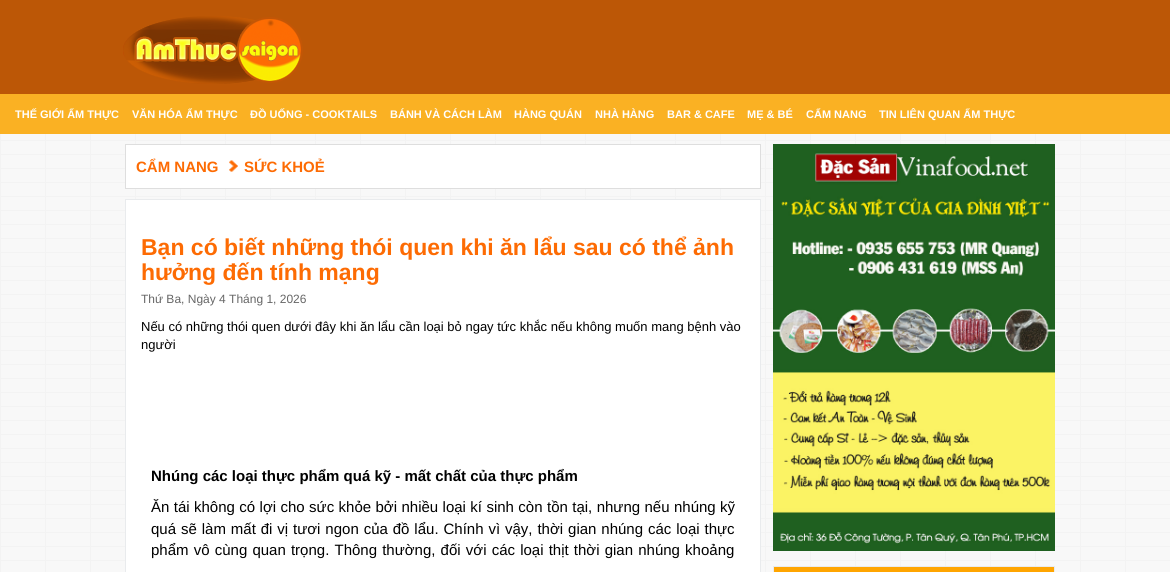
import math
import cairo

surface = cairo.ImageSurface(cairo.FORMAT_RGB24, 1170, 572)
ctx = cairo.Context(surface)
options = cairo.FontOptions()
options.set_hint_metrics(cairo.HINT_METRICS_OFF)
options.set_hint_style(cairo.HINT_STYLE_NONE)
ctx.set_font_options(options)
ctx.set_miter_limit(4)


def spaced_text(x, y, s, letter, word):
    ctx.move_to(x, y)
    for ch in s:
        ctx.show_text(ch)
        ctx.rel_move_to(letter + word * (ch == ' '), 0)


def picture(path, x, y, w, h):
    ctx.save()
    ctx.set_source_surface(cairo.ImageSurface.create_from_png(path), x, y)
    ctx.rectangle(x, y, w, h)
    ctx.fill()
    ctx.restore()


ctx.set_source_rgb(1, 1, 1)
ctx.paint()
picture("img1.png", 0, 134, 1170, 438)
ctx.set_source_rgb(0.737, 0.341, 0.024)
ctx.rectangle(0, 0, 1170, 94)
ctx.fill()
picture("img2.png", 123, 16, 180, 68)
ctx.set_source_rgb(0.98, 0.694, 0.137)
ctx.rectangle(0, 94, 1170, 40)
ctx.fill()
ctx.select_font_face("Liberation Sans", cairo.FONT_SLANT_NORMAL, cairo.FONT_WEIGHT_BOLD)
ctx.set_font_size(11)
ctx.set_source_rgb(1, 1, 1)
ctx.move_to(15, 118)
ctx.show_text("THẾ GIỚI ẨM THỰC")
ctx.move_to(132, 118)
ctx.show_text("VĂN HÓA ẨM THỰC")
ctx.move_to(250, 118)
ctx.show_text("ĐỒ UỐNG - COOKTAILS")
ctx.move_to(390, 118)
ctx.show_text("BÁNH VÀ CÁCH LÀM")
ctx.move_to(514, 118)
ctx.show_text("HÀNG QUÁN")
ctx.move_to(595, 118)
ctx.show_text("NHÀ HÀNG")
ctx.move_to(667, 118)
ctx.show_text("BAR & CAFE")
ctx.move_to(747, 118)
ctx.show_text("MẸ & BÉ")
ctx.move_to(806, 118)
ctx.show_text("CẨM NANG")
ctx.move_to(879, 118)
ctx.show_text("TIN LIÊN QUAN ẨM THỰC")
ctx.rectangle(125.5, 144.5, 635, 44)
ctx.fill_preserve()
ctx.set_source_rgb(0.871, 0.871, 0.871)
ctx.set_line_width(1)
ctx.stroke()
ctx.set_font_size(15)
ctx.set_source_rgb(0.992, 0.42, 0.012)
ctx.move_to(136, 172)
ctx.show_text("CẨM NANG")
picture("img3.png", 229, 160, 9, 12)
ctx.move_to(244, 172)
ctx.show_text("SỨC KHOẺ")
ctx.set_source_rgb(1, 1, 1)
ctx.rectangle(125.5, 199.5, 635, 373)
ctx.fill_preserve()
ctx.set_source_rgb(0.914, 0.918, 0.929)
ctx.stroke()
ctx.set_font_size(23)
ctx.set_source_rgb(0.992, 0.42, 0.012)
ctx.move_to(141, 255)
ctx.show_text("Bạn có biết những thói quen khi ăn lẩu sau có thể ảnh")
ctx.move_to(141, 280)
ctx.show_text("hưởng đến tính mạng")
ctx.select_font_face("Liberation Sans")
ctx.set_font_size(12)
ctx.set_source_rgb(0.4, 0.4, 0.4)
ctx.move_to(141, 303)
ctx.show_text("Thứ Ba, Ngày 4 Tháng 1, 2026")
ctx.set_font_size(13)
ctx.set_source_rgb(0, 0, 0)
ctx.move_to(141, 331)
ctx.show_text("Nếu có những thói quen dưới đây khi ăn lẩu cần loại bỏ ngay tức khắc nếu không muốn mang bệnh vào")
ctx.move_to(141, 349)
ctx.show_text("người")
ctx.select_font_face("Liberation Sans", cairo.FONT_SLANT_NORMAL, cairo.FONT_WEIGHT_BOLD)
ctx.set_font_size(15)
ctx.move_to(151, 481)
ctx.show_text("Nhúng các loại thực phẩm quá kỹ - mất chất của thực phẩm")
ctx.select_font_face("Liberation Sans")
spaced_text(151, 512, "Ăn tái không có lợi cho sức khỏe bởi nhiều loại kí sinh còn tồn tại, nhưng nếu nhúng kỹ", 0, 0.25)
spaced_text(151, 534, "quá sẽ làm mất đi vị tươi ngon của đồ lẩu. Chính vì vậy, thời gian nhúng các loại thực", 0, 0.75)
spaced_text(151, 555, "phẩm vô cùng quan trọng. Thông thường, đối với các loại thịt thời gian nhúng khoảng", 0, 1)
picture("img4.png", 773, 144, 282, 407)
ctx.rectangle(773.5, 566.5, 281, 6)
ctx.set_source_rgb(0.914, 0.918, 0.929)
ctx.stroke()
ctx.set_source_rgb(1, 0.647, 0)
ctx.rectangle(774, 567, 280, 5)
ctx.fill()
surface.write_to_png("page.png")
